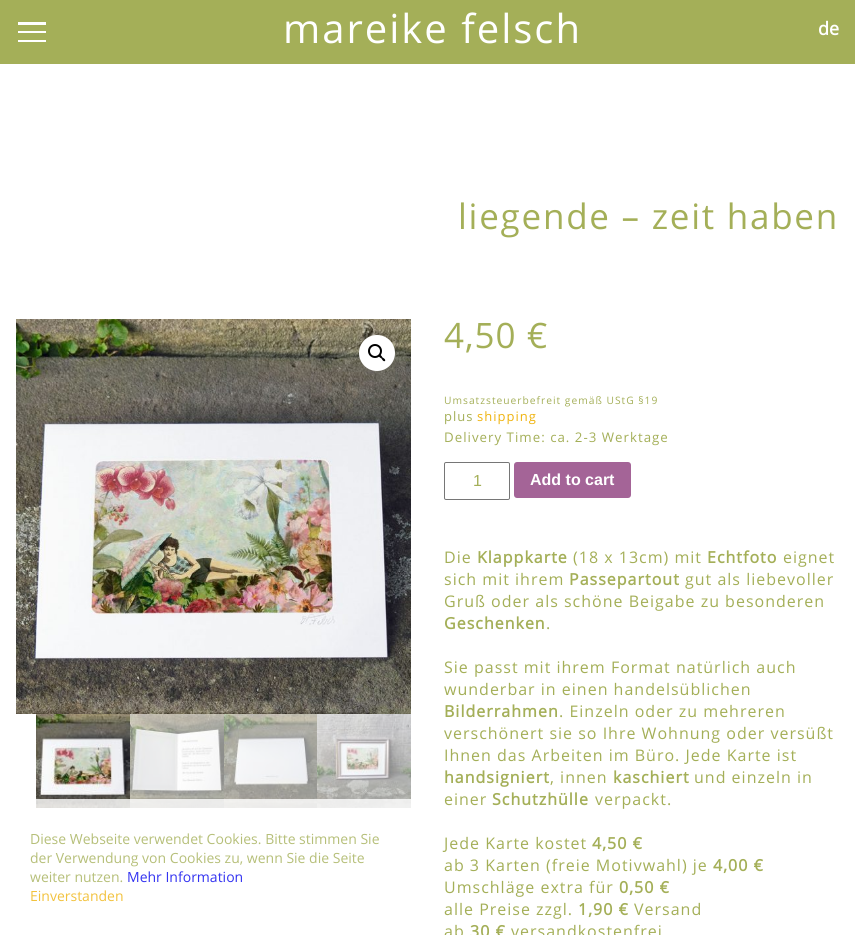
import math
import cairo

surface = cairo.ImageSurface(cairo.FORMAT_RGB24, 855, 935)
ctx = cairo.Context(surface)
options = cairo.FontOptions()
options.set_hint_metrics(cairo.HINT_METRICS_OFF)
options.set_hint_style(cairo.HINT_STYLE_NONE)
ctx.set_font_options(options)
ctx.set_miter_limit(4)


def spaced_text(x, y, s, letter, word):
    ctx.move_to(x, y)
    for ch in s:
        ctx.show_text(ch)
        ctx.rel_move_to(letter + word * (ch == ' '), 0)


def round_rect(x, y, w, h, r):
    ctx.new_sub_path()
    for i, (u, v) in enumerate([(x + w - r, y + h - r), (x + r, y + h - r), (x + r, y + r), (x + w - r, y + r)]):
        ctx.arc(u, v, r, i * math.pi / 2, (i + 1) * math.pi / 2)
    ctx.close_path()


def picture(path, x, y, w, h):
    ctx.save()
    ctx.set_source_surface(cairo.ImageSurface.create_from_png(path), x, y)
    ctx.rectangle(x, y, w, h)
    ctx.fill()
    ctx.restore()


ctx.set_source_rgb(1, 1, 1)
ctx.paint()
picture("img2.png", 36, 714, 94, 94)
picture("img3.png", 130, 714, 94, 94)
picture("img4.png", 224, 714, 93, 94)
picture("img5.png", 317, 714, 94, 94)
ctx.set_source_rgba(1, 1, 1, 0.8)
ctx.rectangle(36, 799, 375, 9)
ctx.fill()
ctx.select_font_face("Open Sans")
ctx.set_font_size(14)
ctx.set_source_rgb(0.714, 0.749, 0.475)
ctx.move_to(30, 844)
ctx.show_text("Diese Webseite verwendet Cookies. Bitte stimmen Sie")
ctx.move_to(30, 863)
ctx.show_text("der Verwendung von Cookies zu, wenn Sie die Seite")
ctx.move_to(30, 882)
ctx.show_text("weiter nutzen.")
ctx.set_source_rgb(0.2, 0.2, 0.945)
ctx.move_to(127, 882)
ctx.show_text("Mehr Information")
ctx.set_source_rgb(0.949, 0.761, 0.243)
ctx.move_to(30, 901)
ctx.show_text("Einverstanden")
ctx.set_source_rgb(0.643, 0.686, 0.345)
ctx.rectangle(0, 0, 855, 64)
ctx.fill()
ctx.set_source_rgb(1, 1, 1)
ctx.rectangle(18, 22, 28, 3)
ctx.fill()
ctx.rectangle(18, 31, 28, 2)
ctx.fill()
ctx.rectangle(18, 40, 28, 2)
ctx.fill()
ctx.set_font_size(40)
spaced_text(283, 43, "mareike felsch", 2, 0)
ctx.select_font_face("Open Sans", cairo.FONT_SLANT_NORMAL, cairo.FONT_WEIGHT_BOLD)
ctx.set_font_size(18)
ctx.move_to(818, 35)
ctx.show_text("de")
ctx.select_font_face("Open Sans")
ctx.set_font_size(35)
ctx.set_source_rgb(0.643, 0.686, 0.345)
spaced_text(458, 229, "liegende – zeit haben", 1.75, 0)
picture("img1.png", 16, 319, 395, 395)
ctx.set_source_rgb(1, 1, 1)
ctx.arc(377, 353, 18, 0, 2 * math.pi)
ctx.fill()
ctx.arc(375, 351, 6, 0, 2 * math.pi)
ctx.set_source_rgb(0, 0, 0)
ctx.stroke()
ctx.new_path()
ctx.move_to(379, 355)
ctx.curve_to(380.5, 354, 382, 356.5, 382.5, 357.5)
ctx.curve_to(383.5, 358, 386, 359.5, 385, 361)
ctx.curve_to(383.5, 362, 382, 359.5, 381.5, 358.5)
ctx.curve_to(380.5, 358, 378, 356.5, 379, 355)
ctx.close_path()
ctx.fill()
ctx.set_source_rgb(0.643, 0.686, 0.345)
spaced_text(444, 348, "4,50 €", 1, 0)
ctx.set_font_size(10.25)
spaced_text(444, 404, "Umsatzsteuerbefreit gemäß UStG §19", 1, 0)
ctx.set_font_size(13)
spaced_text(444, 421, "plus", 1, 0)
ctx.set_source_rgb(0.937, 0.702, 0.055)
spaced_text(477, 421, "shipping", 1, 0)
ctx.set_font_size(13.3)
ctx.set_source_rgb(0.643, 0.686, 0.345)
spaced_text(444, 442, "Delivery Time: ca. 2-3 Werktage", 1, 0)
round_rect(444.5, 462.5, 65, 37, 1.5)
ctx.set_source_rgb(0.463, 0.463, 0.463)
ctx.set_line_width(1)
ctx.stroke()
ctx.select_font_face("Liberation Sans")
ctx.set_font_size(16)
ctx.set_source_rgb(0.643, 0.686, 0.345)
ctx.move_to(473, 486)
ctx.show_text("1")
ctx.set_source_rgb(0.643, 0.392, 0.592)
round_rect(514, 462, 117, 36, 3)
ctx.fill()
ctx.select_font_face("Liberation Sans", cairo.FONT_SLANT_NORMAL, cairo.FONT_WEIGHT_BOLD)
ctx.set_source_rgb(1, 1, 1)
ctx.move_to(530, 485)
ctx.show_text("Add to cart")
ctx.select_font_face("Open Sans")
ctx.set_source_rgb(0.643, 0.686, 0.345)
spaced_text(444, 563, "Die", 1, 0)
ctx.select_font_face("Open Sans", cairo.FONT_SLANT_NORMAL, cairo.FONT_WEIGHT_BOLD)
spaced_text(477, 563, "Klappkarte", 1, 0)
ctx.select_font_face("Open Sans")
spaced_text(573, 563, "(18 x 13cm) mit", 1, 0)
ctx.select_font_face("Open Sans", cairo.FONT_SLANT_NORMAL, cairo.FONT_WEIGHT_BOLD)
spaced_text(707, 563, "Echtfoto", 1, 0)
ctx.select_font_face("Open Sans")
spaced_text(783, 563, "eignet", 1, 0)
spaced_text(444, 585, "sich mit ihrem", 1, 0)
ctx.select_font_face("Open Sans", cairo.FONT_SLANT_NORMAL, cairo.FONT_WEIGHT_BOLD)
spaced_text(569, 585, "Passepartout", 1, 0)
ctx.select_font_face("Open Sans")
spaced_text(685, 585, "gut als liebevoller", 1, 0)
spaced_text(444, 607, "Gruß oder als schöne Beigabe zu besonderen", 1, 0)
ctx.select_font_face("Open Sans", cairo.FONT_SLANT_NORMAL, cairo.FONT_WEIGHT_BOLD)
spaced_text(444, 629, "Geschenken", 1, 0)
ctx.select_font_face("Open Sans")
spaced_text(546, 629, ".", 1, 0)
spaced_text(444, 673, "Sie passt mit ihrem Format natürlich auch", 1, 0)
spaced_text(444, 695, "wunderbar in einen handelsüblichen", 1, 0)
ctx.select_font_face("Open Sans", cairo.FONT_SLANT_NORMAL, cairo.FONT_WEIGHT_BOLD)
spaced_text(444, 717, "Bilderrahmen", 1, 0)
ctx.select_font_face("Open Sans")
spaced_text(559, 717, ". Einzeln oder zu mehreren", 1, 0)
spaced_text(444, 739, "verschönert sie so Ihre Wohnung oder versüßt", 1, 0)
spaced_text(444, 761, "Ihnen das Arbeiten im Büro. Jede Karte ist", 1, 0)
ctx.select_font_face("Open Sans", cairo.FONT_SLANT_NORMAL, cairo.FONT_WEIGHT_BOLD)
spaced_text(444, 783, "handsigniert", 1, 0)
ctx.select_font_face("Open Sans")
spaced_text(550, 783, ", innen", 1, 0)
ctx.select_font_face("Open Sans", cairo.FONT_SLANT_NORMAL, cairo.FONT_WEIGHT_BOLD)
spaced_text(613, 783, "kaschiert", 1, 0)
ctx.select_font_face("Open Sans")
spaced_text(694, 783, "und einzeln in", 1, 0)
spaced_text(444, 805, "einer", 1, 0)
ctx.select_font_face("Open Sans", cairo.FONT_SLANT_NORMAL, cairo.FONT_WEIGHT_BOLD)
spaced_text(492, 805, "Schutzhülle", 1, 0)
ctx.select_font_face("Open Sans")
spaced_text(595, 805, "verpackt.", 1, 0)
spaced_text(444, 849, "Jede Karte kostet", 1, 0)
ctx.select_font_face("Open Sans", cairo.FONT_SLANT_NORMAL, cairo.FONT_WEIGHT_BOLD)
spaced_text(592, 849, "4,50 €", 1, 0)
ctx.select_font_face("Open Sans")
spaced_text(444, 871, "ab 3 Karten (freie Motivwahl) je", 1, 0)
ctx.select_font_face("Open Sans", cairo.FONT_SLANT_NORMAL, cairo.FONT_WEIGHT_BOLD)
spaced_text(713, 871, "4,00 €", 1, 0)
ctx.select_font_face("Open Sans")
spaced_text(444, 893, "Umschläge extra für", 1, 0)
ctx.select_font_face("Open Sans", cairo.FONT_SLANT_NORMAL, cairo.FONT_WEIGHT_BOLD)
spaced_text(619, 893, "0,50 €", 1, 0)
ctx.select_font_face("Open Sans")
spaced_text(444, 915, "alle Preise zzgl.", 1, 0)
ctx.select_font_face("Open Sans", cairo.FONT_SLANT_NORMAL, cairo.FONT_WEIGHT_BOLD)
spaced_text(578, 915, "1,90 €", 1, 0)
ctx.select_font_face("Open Sans")
spaced_text(634, 915, "Versand", 1, 0)
spaced_text(444, 937, "ab", 1, 0)
ctx.select_font_face("Open Sans", cairo.FONT_SLANT_NORMAL, cairo.FONT_WEIGHT_BOLD)
spaced_text(470, 937, "30 €", 1, 0)
ctx.select_font_face("Open Sans")
spaced_text(511, 937, "versandkostenfrei", 1, 0)
surface.write_to_png("page.png")
